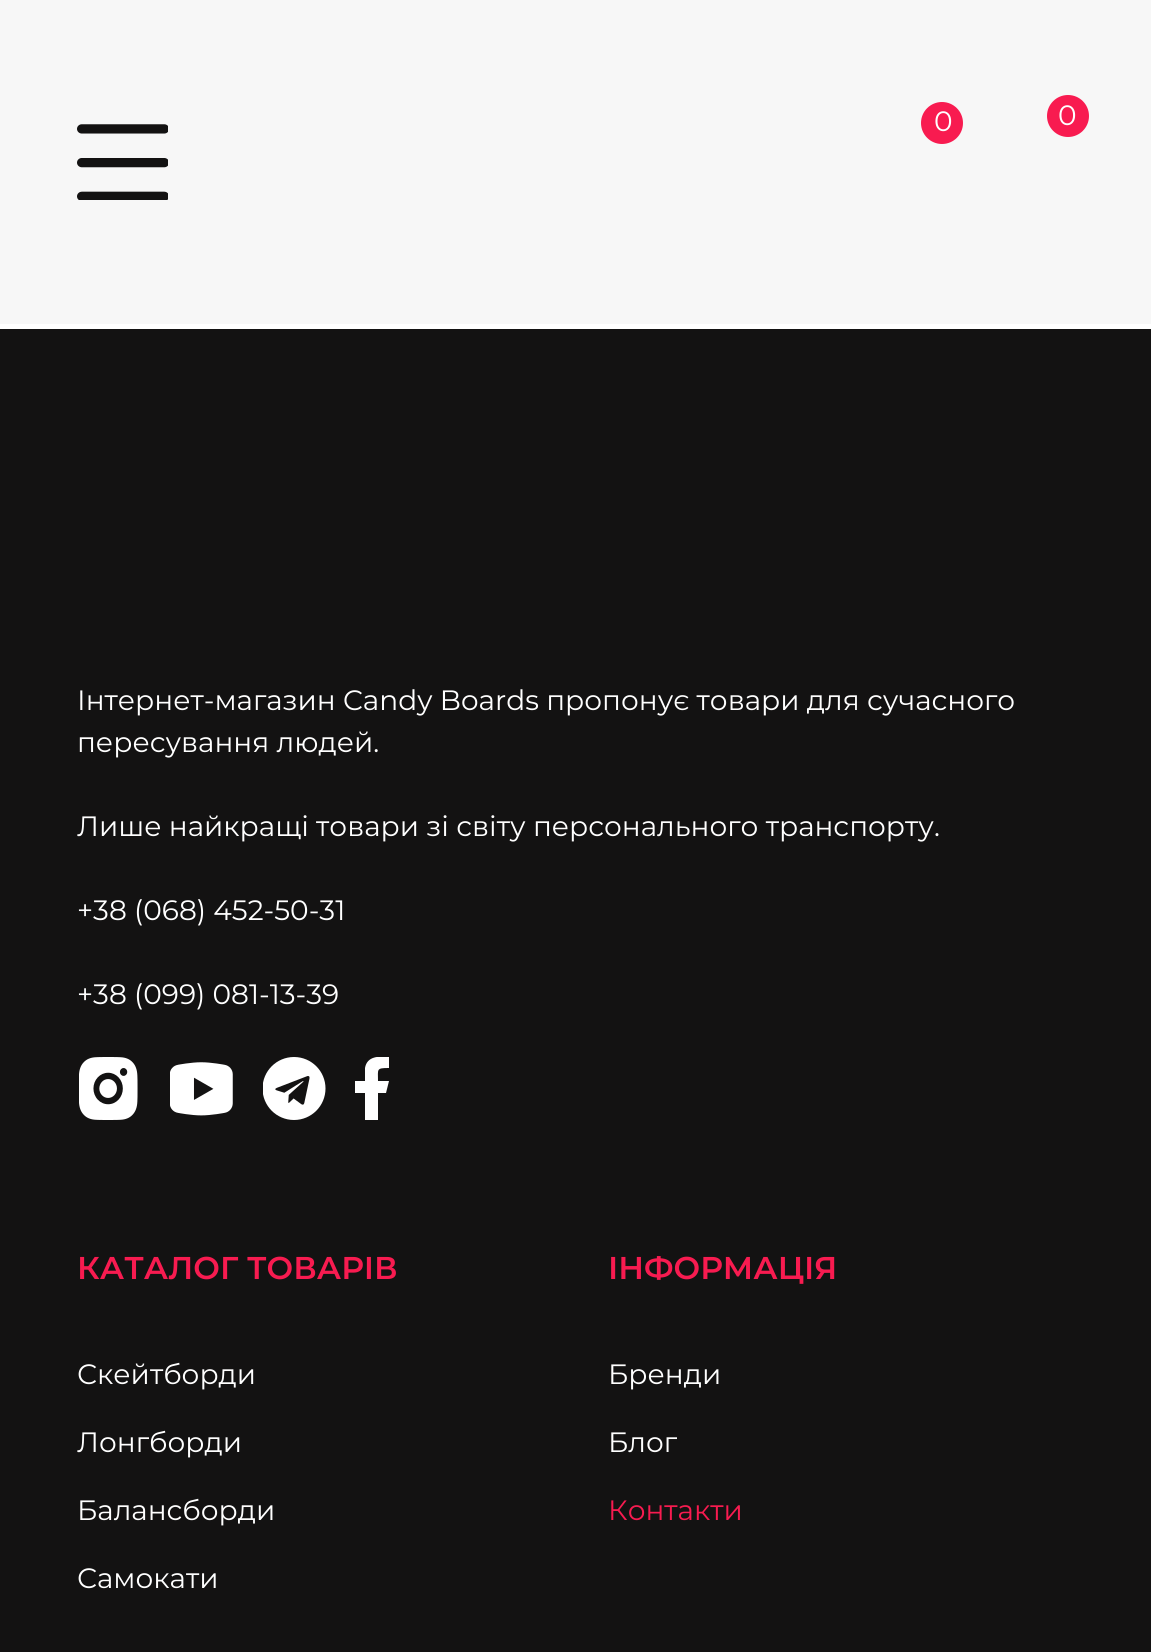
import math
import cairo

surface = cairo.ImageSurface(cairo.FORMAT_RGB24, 1151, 1652)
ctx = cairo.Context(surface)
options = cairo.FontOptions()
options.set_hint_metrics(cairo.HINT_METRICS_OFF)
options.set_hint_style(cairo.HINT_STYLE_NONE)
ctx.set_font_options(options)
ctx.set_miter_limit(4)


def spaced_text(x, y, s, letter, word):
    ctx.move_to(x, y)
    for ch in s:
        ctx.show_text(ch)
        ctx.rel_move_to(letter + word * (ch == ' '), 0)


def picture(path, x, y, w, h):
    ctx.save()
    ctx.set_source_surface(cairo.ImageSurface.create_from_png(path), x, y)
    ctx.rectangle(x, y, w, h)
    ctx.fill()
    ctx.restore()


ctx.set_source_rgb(1, 1, 1)
ctx.paint()
ctx.set_source_rgb(0.965, 0.965, 0.965)
ctx.rectangle(0, 0, 1151, 324)
ctx.fill()
ctx.set_source_rgb(0.969, 0.106, 0.314)
ctx.arc(942, 123, 21, 0, 2 * math.pi)
ctx.fill()
ctx.select_font_face("Montserrat")
ctx.set_font_size(28)
ctx.set_source_rgb(1, 1, 1)
spaced_text(934, 131, "0", -4, 0)
ctx.set_source_rgb(0.969, 0.106, 0.314)
ctx.new_path()
ctx.arc(1068, 116, 21, 0, 2 * math.pi)
ctx.fill()
ctx.set_source_rgb(1, 1, 1)
ctx.move_to(1058, 125)
ctx.show_text("0")
picture("img1.png", 77, 124, 91, 76)
ctx.set_source_rgb(0.075, 0.071, 0.071)
ctx.rectangle(0, 329, 1151, 1323)
ctx.fill()
ctx.set_source_rgb(1, 1, 1)
ctx.move_to(77, 710)
ctx.show_text("Інтернет-магазин Candy Boards пропонує товари для сучасного")
ctx.move_to(77, 752)
ctx.show_text("пересування людей.")
ctx.move_to(77, 836)
ctx.show_text("Лише найкращі товари зі світу персонального транспорту.")
ctx.move_to(77, 920)
ctx.show_text("+38 (068) 452-50-31")
ctx.move_to(77, 1004)
ctx.show_text("+38 (099) 081-13-39")
picture("img2.png", 79, 1057, 59, 63)
picture("img3.png", 170, 1062, 63, 54)
picture("img4.png", 263, 1057, 63, 63)
ctx.save()
ctx.rectangle(355, 1057, 35, 63)
ctx.clip()
ctx.new_path()
ctx.move_to(378, 1093)
ctx.line_to(386, 1093)
ctx.line_to(389, 1081)
ctx.line_to(378, 1081)
ctx.curve_to(378, 1069, 376, 1068, 389, 1068)
ctx.line_to(389, 1057)
ctx.curve_to(379, 1056, 367, 1056, 365, 1068)
ctx.line_to(365, 1081)
ctx.line_to(355, 1081)
ctx.line_to(355, 1093)
ctx.line_to(365, 1093)
ctx.line_to(365, 1120)
ctx.line_to(378, 1120)
ctx.close_path()
ctx.fill()
ctx.restore()
ctx.select_font_face("Montserrat SemiBold")
ctx.set_font_size(31.5)
ctx.set_source_rgb(0.969, 0.106, 0.314)
ctx.move_to(77, 1279)
ctx.show_text("КАТАЛОГ ТОВАРІВ")
ctx.select_font_face("Montserrat")
ctx.set_font_size(28)
ctx.set_source_rgb(1, 1, 1)
ctx.move_to(77, 1384)
ctx.show_text("Скейтборди")
ctx.move_to(77, 1452)
ctx.show_text("Лонгборди")
ctx.move_to(77, 1520)
ctx.show_text("Балансборди")
ctx.move_to(77, 1588)
ctx.show_text("Самокати")
ctx.select_font_face("Montserrat SemiBold")
ctx.set_font_size(31.5)
ctx.set_source_rgb(0.969, 0.106, 0.314)
ctx.move_to(608, 1279)
ctx.show_text("ІНФОРМАЦІЯ")
ctx.select_font_face("Montserrat")
ctx.set_font_size(28)
ctx.set_source_rgb(1, 1, 1)
ctx.move_to(608, 1384)
ctx.show_text("Бренди")
ctx.move_to(608, 1452)
ctx.show_text("Блог")
ctx.set_source_rgb(0.969, 0.106, 0.314)
ctx.move_to(608, 1520)
ctx.show_text("Контакти")
surface.write_to_png("page.png")
